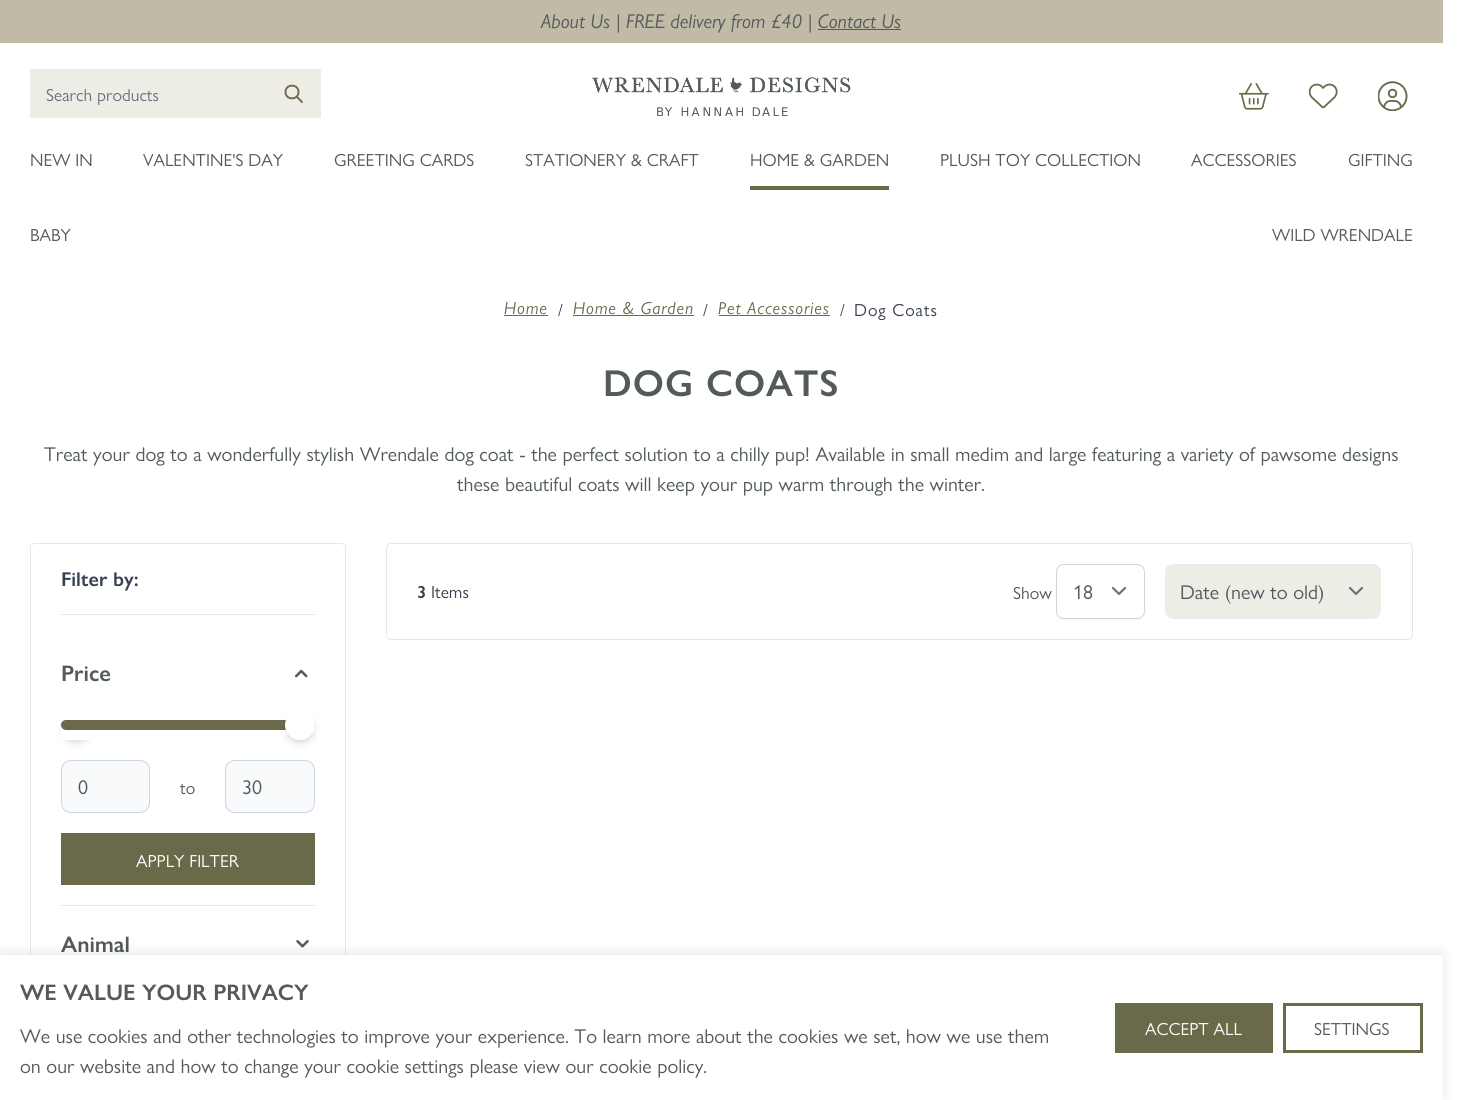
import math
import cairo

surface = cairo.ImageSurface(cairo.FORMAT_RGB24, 1461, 1100)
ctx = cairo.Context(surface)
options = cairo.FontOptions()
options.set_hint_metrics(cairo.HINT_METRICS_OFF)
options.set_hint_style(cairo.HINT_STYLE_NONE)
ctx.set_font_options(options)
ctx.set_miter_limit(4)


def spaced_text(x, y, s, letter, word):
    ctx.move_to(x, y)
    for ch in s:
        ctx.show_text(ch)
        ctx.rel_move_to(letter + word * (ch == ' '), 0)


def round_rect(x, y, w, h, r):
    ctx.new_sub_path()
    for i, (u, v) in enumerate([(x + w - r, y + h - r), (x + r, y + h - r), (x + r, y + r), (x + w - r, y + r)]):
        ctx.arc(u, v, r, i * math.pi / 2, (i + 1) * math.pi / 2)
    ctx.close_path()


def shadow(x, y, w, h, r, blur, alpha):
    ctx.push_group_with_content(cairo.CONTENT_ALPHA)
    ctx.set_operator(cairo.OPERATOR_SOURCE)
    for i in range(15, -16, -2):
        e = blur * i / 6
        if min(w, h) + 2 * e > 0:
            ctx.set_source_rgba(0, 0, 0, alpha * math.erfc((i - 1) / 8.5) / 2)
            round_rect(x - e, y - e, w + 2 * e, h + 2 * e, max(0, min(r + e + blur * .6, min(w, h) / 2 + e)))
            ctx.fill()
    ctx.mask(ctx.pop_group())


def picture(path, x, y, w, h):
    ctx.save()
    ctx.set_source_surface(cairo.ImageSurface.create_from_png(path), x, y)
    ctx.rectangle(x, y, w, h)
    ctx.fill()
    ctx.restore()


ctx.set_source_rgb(1, 1, 1)
ctx.paint()
ctx.set_source_rgb(0.753, 0.729, 0.651)
ctx.rectangle(0, 0, 1443, 43)
ctx.fill()
ctx.select_font_face("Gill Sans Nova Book", cairo.FONT_SLANT_ITALIC)
ctx.set_font_size(20)
ctx.set_source_rgb(0.322, 0.353, 0.361)
ctx.move_to(541, 28)
ctx.show_text("About Us | FREE delivery from £40 | Contact Us")
ctx.rectangle(818, 29, 83, 1)
ctx.fill()
ctx.set_source_rgb(0.929, 0.922, 0.898)
ctx.rectangle(30, 69, 291, 49)
ctx.fill()
ctx.select_font_face("Gill Sans Nova Book")
ctx.set_font_size(17.5)
ctx.set_source_rgb(0.42, 0.447, 0.502)
ctx.move_to(46, 101)
ctx.show_text("Search products")
ctx.new_path()
ctx.move_to(302, 102)
ctx.line_to(296.5, 96.5)
ctx.move_to(298.5, 92)
ctx.curve_to(298.5, 100.5, 285.5, 100.5, 285.5, 92)
ctx.curve_to(285.5, 83.5, 298.5, 83.5, 298.5, 92)
ctx.close_path()
ctx.set_source_rgb(0.416, 0.412, 0.286)
ctx.set_line_width(1.9)
ctx.set_line_cap(cairo.LINE_CAP_ROUND)
ctx.set_line_join(cairo.LINE_JOIN_ROUND)
ctx.stroke()
picture("img1.png", 592, 77, 259, 39)
picture("img2.png", 1239, 83, 30, 27)
picture("img3.png", 1309, 83, 29, 26)
picture("img4.png", 1378, 81, 30, 30)
ctx.set_source_rgb(0.322, 0.353, 0.361)
ctx.move_to(30, 166)
ctx.show_text("NEW IN")
ctx.move_to(143, 166)
ctx.show_text("VALENTINE'S DAY")
ctx.move_to(334, 166)
ctx.show_text("GREETING CARDS")
ctx.move_to(525, 166)
ctx.show_text("STATIONERY & CRAFT")
ctx.set_source_rgb(0.416, 0.412, 0.286)
ctx.rectangle(750, 186, 139, 4)
ctx.fill()
ctx.set_source_rgb(0.322, 0.353, 0.361)
ctx.move_to(750, 166)
ctx.show_text("HOME & GARDEN")
ctx.move_to(940, 166)
ctx.show_text("PLUSH TOY COLLECTION")
ctx.move_to(1191, 166)
ctx.show_text("ACCESSORIES")
ctx.move_to(1348, 166)
ctx.show_text("GIFTING")
ctx.move_to(30, 241)
ctx.show_text("BABY")
ctx.move_to(1272, 241)
ctx.show_text("WILD WRENDALE")
ctx.select_font_face("Gill Sans Nova Book", cairo.FONT_SLANT_ITALIC)
ctx.set_source_rgb(0.416, 0.412, 0.286)
spaced_text(504, 314, "Home", 0.9, 0)
ctx.rectangle(504, 315, 44, 1)
ctx.fill()
ctx.select_font_face("Gill Sans Nova Book")
ctx.set_source_rgb(0.216, 0.255, 0.318)
ctx.move_to(558, 316)
ctx.show_text("/")
ctx.select_font_face("Gill Sans Nova Book", cairo.FONT_SLANT_ITALIC)
ctx.set_source_rgb(0.416, 0.412, 0.286)
spaced_text(573, 314, "Home & Garden", 0.9, 0)
ctx.rectangle(573, 315, 121, 1)
ctx.fill()
ctx.select_font_face("Gill Sans Nova Book")
ctx.set_source_rgb(0.216, 0.255, 0.318)
ctx.move_to(703, 316)
ctx.show_text("/")
ctx.select_font_face("Gill Sans Nova Book", cairo.FONT_SLANT_ITALIC)
ctx.set_source_rgb(0.416, 0.412, 0.286)
spaced_text(718, 314, "Pet Accessories", 0.9, 0)
ctx.rectangle(719, 315, 111, 1)
ctx.fill()
ctx.select_font_face("Gill Sans Nova Book")
ctx.set_source_rgb(0.216, 0.255, 0.318)
ctx.move_to(840, 316)
ctx.show_text("/")
spaced_text(854, 316, "Dog Coats", 0.9, 0)
ctx.select_font_face("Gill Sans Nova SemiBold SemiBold")
ctx.set_font_size(37.5)
ctx.set_source_rgb(0.322, 0.353, 0.361)
spaced_text(603, 396, "DOG COATS", 1, 0)
ctx.select_font_face("Gill Sans Nova Book")
ctx.set_font_size(20)
ctx.move_to(44, 461)
ctx.show_text("Treat your dog to a wonderfully stylish Wrendale dog coat - the perfect solution to a chilly pup! Available in small medim and large featuring a variety of pawsome designs")
ctx.move_to(457, 491)
ctx.show_text("these beautiful coats will keep your pup warm through the winter.")
round_rect(30.5, 543.5, 315, 459, 4.5)
ctx.set_source_rgb(0.886, 0.91, 0.941)
ctx.set_line_width(1)
ctx.set_line_cap(cairo.LINE_CAP_BUTT)
ctx.set_line_join(cairo.LINE_JOIN_MITER)
ctx.stroke()
ctx.rectangle(61, 614, 254, 1)
ctx.fill()
ctx.select_font_face("Gill Sans Nova SemiBold SemiBold")
ctx.set_source_rgb(0.216, 0.255, 0.318)
ctx.move_to(61, 586)
ctx.show_text("Filter by:")
ctx.set_source_rgb(0.886, 0.91, 0.941)
ctx.rectangle(61, 905, 254, 1)
ctx.fill()
ctx.set_font_size(22.5)
ctx.set_source_rgb(0.322, 0.353, 0.361)
ctx.move_to(61, 681)
ctx.show_text("Price")
picture("img5.png", 295, 669, 13, 9)
ctx.set_source_rgb(0, 0, 0)
shadow(64, 715, 25, 25, 12.5, 2.5, 0.1)
shadow(63, 716, 27, 28, 13.5, 4, 0.1)
ctx.set_source_rgb(1, 1, 1)
ctx.rectangle(61, 711, 34, 29)
ctx.fill()
ctx.set_source_rgb(0.416, 0.412, 0.294)
round_rect(61, 720, 254, 10, 5)
ctx.fill()
ctx.set_source_rgb(0, 0, 0)
shadow(288, 715, 25, 25, 12.5, 2.5, 0.1)
shadow(286, 716, 28, 28, 14, 4, 0.1)
ctx.set_source_rgb(1, 1, 1)
ctx.arc(300, 725, 13, 0, 2 * math.pi)
ctx.fill_preserve()
ctx.set_line_width(4)
ctx.stroke()
ctx.set_source_rgb(0.973, 0.98, 0.988)
round_rect(61.5, 760.5, 88, 52, 9.5)
ctx.fill_preserve()
ctx.set_source_rgb(0.796, 0.835, 0.882)
ctx.set_line_width(1)
ctx.stroke()
ctx.select_font_face("Gill Sans Nova Book")
ctx.set_font_size(20)
ctx.set_source_rgb(0.322, 0.353, 0.361)
ctx.move_to(78, 794)
ctx.show_text("0")
ctx.set_font_size(17.5)
ctx.move_to(180, 794)
ctx.show_text("to")
ctx.set_source_rgb(0.973, 0.98, 0.988)
round_rect(225.5, 760.5, 89, 52, 9.5)
ctx.fill_preserve()
ctx.set_source_rgb(0.796, 0.835, 0.882)
ctx.stroke()
ctx.set_font_size(20)
ctx.set_source_rgb(0.322, 0.353, 0.361)
ctx.move_to(242, 794)
ctx.show_text("30")
ctx.set_source_rgb(0.416, 0.412, 0.286)
ctx.rectangle(61, 833, 254, 52)
ctx.fill()
ctx.set_font_size(17.5)
ctx.set_source_rgb(1, 1, 1)
ctx.move_to(136, 867)
ctx.show_text("APPLY FILTER")
ctx.select_font_face("Gill Sans Nova SemiBold SemiBold")
ctx.set_font_size(22.5)
ctx.set_source_rgb(0.322, 0.353, 0.361)
ctx.move_to(61, 952)
ctx.show_text("Animal")
picture("img6.png", 296, 940, 13, 8)
round_rect(386.5, 543.5, 1026, 96, 4.5)
ctx.set_source_rgb(0.886, 0.91, 0.941)
ctx.stroke()
ctx.set_font_size(17.5)
ctx.set_source_rgb(0.216, 0.255, 0.318)
ctx.move_to(417, 598)
ctx.show_text("3")
ctx.select_font_face("Gill Sans Nova Book")
ctx.move_to(431, 598)
ctx.show_text("Items")
ctx.set_source_rgb(0.322, 0.353, 0.361)
ctx.move_to(1013, 599)
ctx.show_text("Show")
ctx.set_source_rgb(0, 0, 0)
shadow(1056, 565, 89, 55, 8, 1, 0.05)
ctx.set_source_rgb(1, 1, 1)
round_rect(1056, 564, 89, 55, 8)
ctx.fill()
ctx.new_path()
ctx.move_to(1113, 588)
ctx.line_to(1119, 594)
ctx.line_to(1125, 588)
ctx.set_source_rgb(0.42, 0.447, 0.502)
ctx.set_line_width(2.2)
ctx.set_line_cap(cairo.LINE_CAP_ROUND)
ctx.set_line_join(cairo.LINE_JOIN_ROUND)
ctx.stroke()
round_rect(1056.5, 564.5, 88, 54, 7.5)
ctx.set_source_rgb(0.82, 0.835, 0.859)
ctx.set_line_width(1)
ctx.set_line_cap(cairo.LINE_CAP_BUTT)
ctx.set_line_join(cairo.LINE_JOIN_MITER)
ctx.stroke()
ctx.set_font_size(20)
ctx.set_source_rgb(0.322, 0.353, 0.361)
ctx.move_to(1073, 599)
ctx.show_text("18")
ctx.set_source_rgb(0.929, 0.922, 0.898)
round_rect(1165, 564, 216, 55, 8)
ctx.fill()
ctx.new_path()
ctx.move_to(1350, 588)
ctx.line_to(1356, 594)
ctx.line_to(1362, 588)
ctx.set_source_rgb(0.42, 0.447, 0.502)
ctx.set_line_width(2.2)
ctx.set_line_cap(cairo.LINE_CAP_ROUND)
ctx.set_line_join(cairo.LINE_JOIN_ROUND)
ctx.stroke()
ctx.set_source_rgb(0.322, 0.353, 0.361)
ctx.move_to(1180, 599)
ctx.show_text("Date (new to old)")
ctx.set_source_rgb(0, 0, 0)
shadow(0, 953, 1443, 145, 0, 6, 0.1)
ctx.set_source_rgb(1, 1, 1)
ctx.rectangle(0, 955, 1443, 145)
ctx.fill()
ctx.select_font_face("Gill Sans Nova SemiBold SemiBold")
ctx.set_font_size(22.5)
ctx.set_source_rgb(0.322, 0.353, 0.361)
ctx.move_to(20, 1000)
ctx.show_text("WE VALUE YOUR PRIVACY")
ctx.select_font_face("Gill Sans Nova Book")
ctx.set_font_size(20)
ctx.move_to(20, 1043)
ctx.show_text("We use cookies and other technologies to improve your experience. To learn more about the cookies we set, how we use them")
ctx.move_to(20, 1073)
ctx.show_text("on our website and how to change your cookie settings please view our cookie policy.")
ctx.set_source_rgb(0.416, 0.412, 0.286)
ctx.rectangle(1115, 1003, 158, 50)
ctx.fill()
ctx.set_font_size(17.5)
ctx.set_source_rgb(1, 1, 1)
ctx.move_to(1145, 1035)
ctx.show_text("ACCEPT ALL")
ctx.rectangle(1284.5, 1004.5, 137, 47)
ctx.set_source_rgb(0.416, 0.412, 0.286)
ctx.set_line_width(3)
ctx.set_line_cap(cairo.LINE_CAP_BUTT)
ctx.set_line_join(cairo.LINE_JOIN_MITER)
ctx.stroke()
ctx.set_source_rgb(0.322, 0.353, 0.361)
ctx.move_to(1314, 1035)
ctx.show_text("SETTINGS")
surface.write_to_png("page.png")
